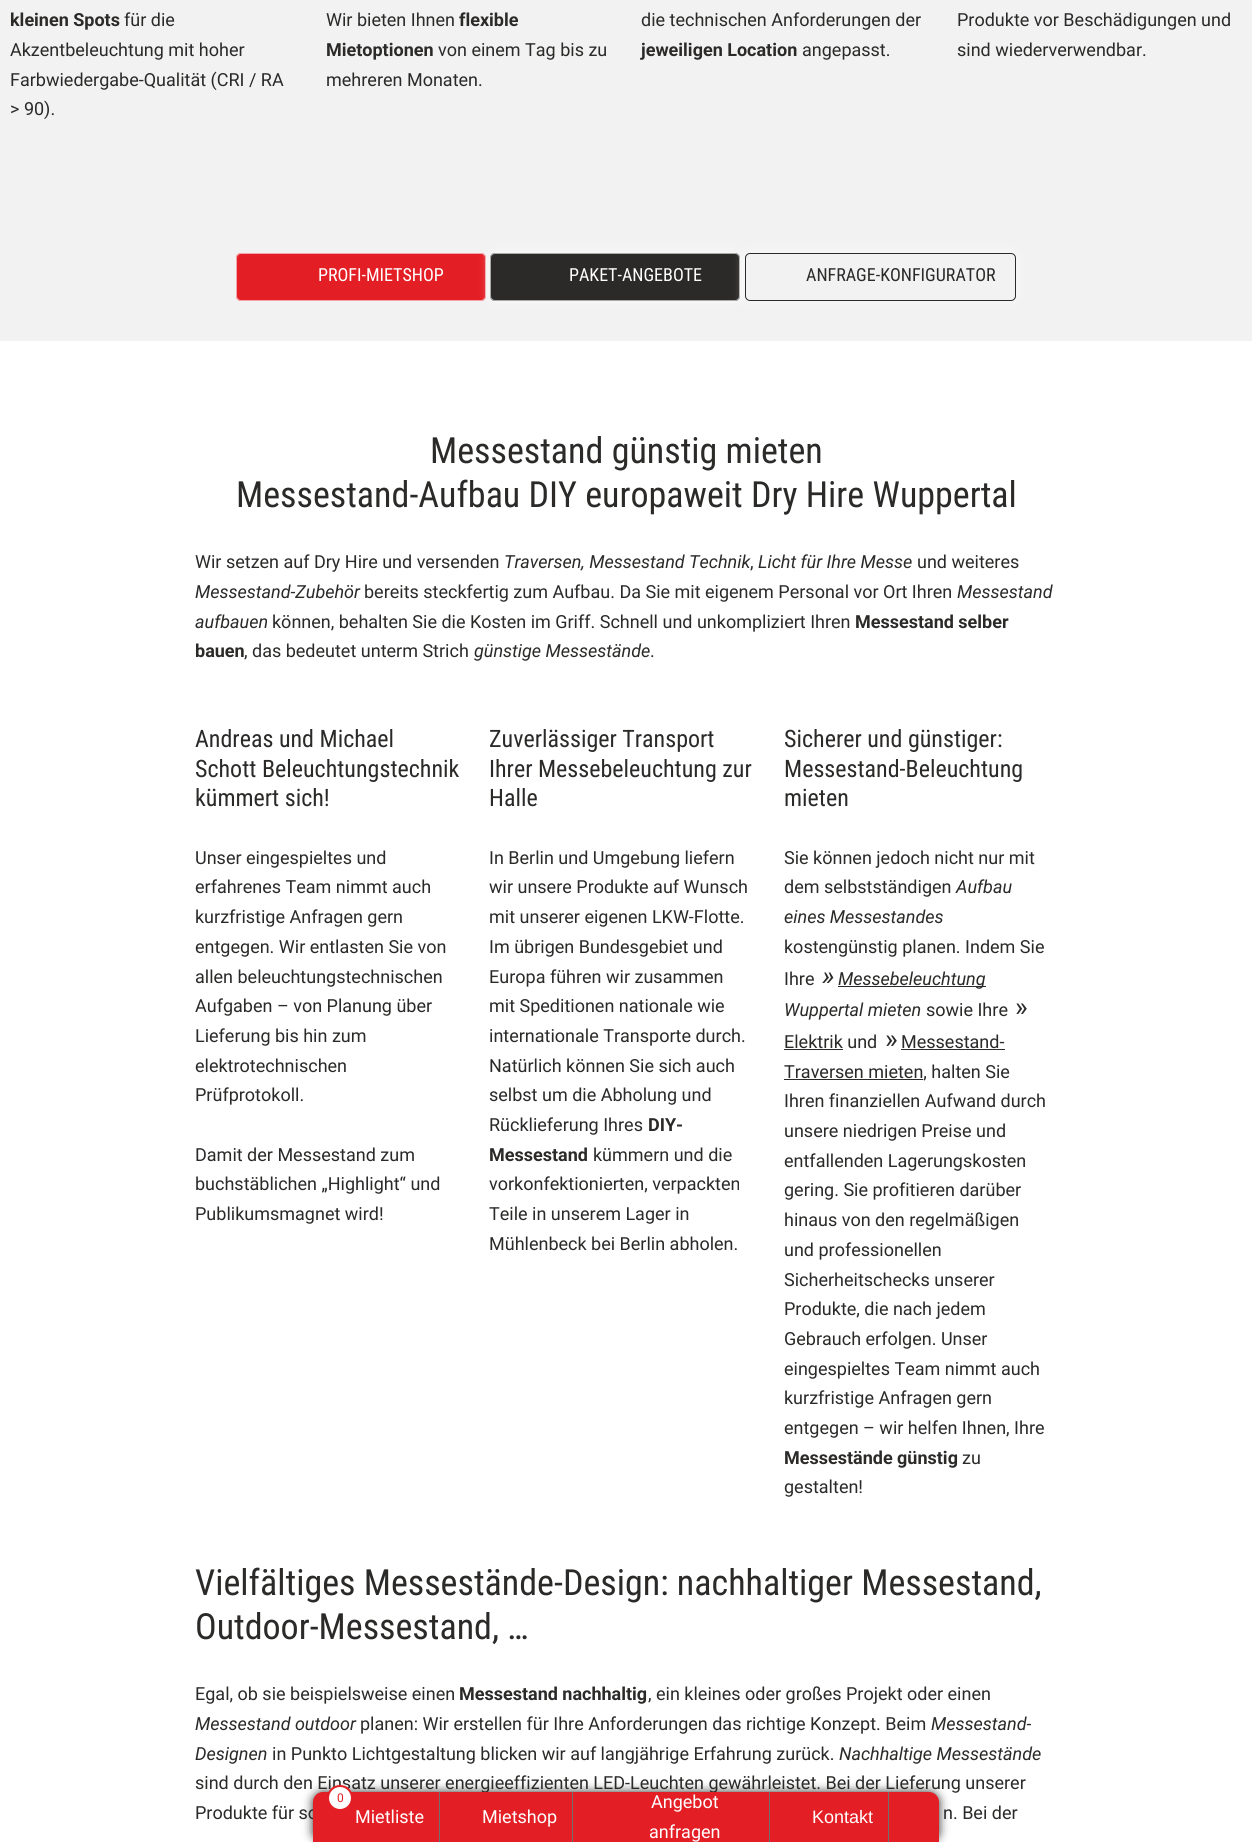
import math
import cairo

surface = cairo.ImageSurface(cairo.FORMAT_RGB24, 1252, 1842)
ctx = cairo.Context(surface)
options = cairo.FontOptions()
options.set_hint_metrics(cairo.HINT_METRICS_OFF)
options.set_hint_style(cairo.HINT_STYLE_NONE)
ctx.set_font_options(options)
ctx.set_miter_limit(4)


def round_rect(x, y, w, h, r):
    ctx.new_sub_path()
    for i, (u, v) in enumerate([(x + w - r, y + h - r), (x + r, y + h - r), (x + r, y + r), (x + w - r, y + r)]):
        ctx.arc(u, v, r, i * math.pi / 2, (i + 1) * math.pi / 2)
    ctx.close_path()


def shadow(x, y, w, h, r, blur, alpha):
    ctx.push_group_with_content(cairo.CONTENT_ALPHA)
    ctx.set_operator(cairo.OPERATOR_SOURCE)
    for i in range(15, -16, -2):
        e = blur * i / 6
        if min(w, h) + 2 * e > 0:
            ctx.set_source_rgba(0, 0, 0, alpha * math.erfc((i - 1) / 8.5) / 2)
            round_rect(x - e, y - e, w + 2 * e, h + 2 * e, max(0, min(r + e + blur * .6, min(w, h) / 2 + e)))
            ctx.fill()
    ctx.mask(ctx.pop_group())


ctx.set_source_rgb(1, 1, 1)
ctx.paint()
ctx.set_source_rgb(0.949, 0.949, 0.949)
ctx.rectangle(0, 0, 1252, 213)
ctx.fill()
ctx.select_font_face("Roboto", cairo.FONT_SLANT_NORMAL, cairo.FONT_WEIGHT_BOLD)
ctx.set_font_size(18)
ctx.set_source_rgb(0.169, 0.165, 0.161)
ctx.move_to(10, 26)
ctx.show_text("kleinen Spots")
ctx.select_font_face("Roboto")
ctx.move_to(124, 26)
ctx.show_text("für die")
ctx.move_to(10, 56)
ctx.show_text("Akzentbeleuchtung mit hoher")
ctx.move_to(10, 86)
ctx.show_text("Farbwiedergabe-Qualität (CRI / RA")
ctx.move_to(10, 115)
ctx.show_text("> 90).")
ctx.move_to(326, 26)
ctx.show_text("Wir bieten Ihnen")
ctx.select_font_face("Roboto", cairo.FONT_SLANT_NORMAL, cairo.FONT_WEIGHT_BOLD)
ctx.move_to(459, 26)
ctx.show_text("flexible")
ctx.move_to(326, 56)
ctx.show_text("Mietoptionen")
ctx.select_font_face("Roboto")
ctx.move_to(438, 56)
ctx.show_text("von einem Tag bis zu")
ctx.move_to(326, 86)
ctx.show_text("mehreren Monaten.")
ctx.move_to(641, 26)
ctx.show_text("die technischen Anforderungen der")
ctx.select_font_face("Roboto", cairo.FONT_SLANT_NORMAL, cairo.FONT_WEIGHT_BOLD)
ctx.move_to(641, 56)
ctx.show_text("jeweiligen Location")
ctx.select_font_face("Roboto")
ctx.move_to(802, 56)
ctx.show_text("angepasst.")
ctx.move_to(957, 26)
ctx.show_text("Produkte vor Beschädigungen und")
ctx.move_to(957, 56)
ctx.show_text("sind wiederverwendbar.")
ctx.set_source_rgb(0.949, 0.949, 0.949)
ctx.rectangle(0, 213, 1252, 128)
ctx.fill()
ctx.set_source_rgb(0.89, 0.118, 0.141)
round_rect(236, 253, 250, 48, 5)
ctx.fill()
round_rect(236.5, 253.5, 249, 47, 4.5)
ctx.set_source_rgba(1, 1, 1, 0.6)
ctx.set_line_width(1)
ctx.stroke()
ctx.select_font_face("Roboto Condensed")
ctx.set_source_rgb(1, 1, 1)
ctx.move_to(318, 281)
ctx.show_text("PROFI-MIETSHOP")
ctx.set_source_rgb(1, 1, 1)
shadow(490, 253, 250, 48, 5, 5, 0.7)
ctx.set_source_rgb(0.169, 0.165, 0.161)
round_rect(490, 253, 250, 48, 5)
ctx.fill()
round_rect(490.5, 253.5, 249, 47, 4.5)
ctx.set_source_rgba(1, 1, 1, 0.6)
ctx.stroke()
ctx.set_source_rgb(1, 1, 1)
ctx.move_to(569, 281)
ctx.show_text("PAKET-ANGEBOTE")
ctx.save()
ctx.set_fill_rule(cairo.FILL_RULE_EVEN_ODD)
ctx.new_path()
ctx.move_to(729, 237)
ctx.line_to(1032, 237)
ctx.line_to(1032, 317)
ctx.line_to(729, 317)
ctx.close_path()
ctx.move_to(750, 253)
ctx.line_to(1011, 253)
ctx.curve_to(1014, 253, 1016, 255, 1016, 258)
ctx.line_to(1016, 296)
ctx.curve_to(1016, 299, 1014, 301, 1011, 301)
ctx.line_to(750, 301)
ctx.curve_to(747, 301, 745, 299, 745, 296)
ctx.line_to(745, 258)
ctx.curve_to(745, 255, 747, 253, 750, 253)
ctx.close_path()
ctx.clip()
ctx.set_source_rgb(1, 1, 1)
shadow(745, 253, 271, 48, 5, 5, 0.7)
ctx.restore()
round_rect(745.5, 253.5, 270, 47, 4.5)
ctx.set_source_rgb(0.169, 0.165, 0.161)
ctx.stroke()
ctx.move_to(806, 281)
ctx.show_text("ANFRAGE-KONFIGURATOR")
ctx.set_font_size(36)
ctx.move_to(430, 463)
ctx.show_text("Messestand günstig mieten")
ctx.move_to(236, 507)
ctx.show_text("Messestand-Aufbau DIY europaweit Dry Hire Wuppertal")
ctx.select_font_face("Roboto")
ctx.set_font_size(18)
ctx.move_to(195, 568)
ctx.show_text("Wir setzen auf Dry Hire und versenden")
ctx.select_font_face("Roboto", cairo.FONT_SLANT_ITALIC)
ctx.move_to(504, 568)
ctx.show_text("Traversen, Messestand Technik")
ctx.select_font_face("Roboto")
ctx.move_to(750, 568)
ctx.show_text(",")
ctx.select_font_face("Roboto", cairo.FONT_SLANT_ITALIC)
ctx.move_to(758, 568)
ctx.show_text("Licht für Ihre Messe")
ctx.select_font_face("Roboto")
ctx.move_to(917, 568)
ctx.show_text("und weiteres")
ctx.select_font_face("Roboto", cairo.FONT_SLANT_ITALIC)
ctx.move_to(195, 598)
ctx.show_text("Messestand-Zubehör")
ctx.select_font_face("Roboto")
ctx.move_to(364, 598)
ctx.show_text("bereits steckfertig zum Aufbau. Da Sie mit eigenem Personal vor Ort Ihren")
ctx.select_font_face("Roboto", cairo.FONT_SLANT_ITALIC)
ctx.move_to(957, 598)
ctx.show_text("Messestand")
ctx.move_to(195, 628)
ctx.show_text("aufbauen")
ctx.select_font_face("Roboto")
ctx.move_to(272, 628)
ctx.show_text("können, behalten Sie die Kosten im Griff. Schnell und unkompliziert Ihren")
ctx.select_font_face("Roboto", cairo.FONT_SLANT_NORMAL, cairo.FONT_WEIGHT_BOLD)
ctx.move_to(855, 628)
ctx.show_text("Messestand selber")
ctx.move_to(195, 657)
ctx.show_text("bauen")
ctx.select_font_face("Roboto")
ctx.move_to(244, 657)
ctx.show_text(", das bedeutet unterm Strich")
ctx.select_font_face("Roboto", cairo.FONT_SLANT_ITALIC)
ctx.move_to(474, 657)
ctx.show_text("günstige Messestände")
ctx.select_font_face("Roboto")
ctx.move_to(650, 657)
ctx.show_text(".")
ctx.select_font_face("Roboto Condensed")
ctx.set_font_size(24)
ctx.move_to(195, 747)
ctx.show_text("Andreas und Michael")
ctx.move_to(195, 777)
ctx.show_text("Schott Beleuchtungstechnik")
ctx.move_to(195, 806)
ctx.show_text("kümmert sich!")
ctx.select_font_face("Roboto")
ctx.set_font_size(18)
ctx.move_to(195, 864)
ctx.show_text("Unser eingespieltes und")
ctx.move_to(195, 893)
ctx.show_text("erfahrenes Team nimmt auch")
ctx.move_to(195, 923)
ctx.show_text("kurzfristige Anfragen gern")
ctx.move_to(195, 953)
ctx.show_text("entgegen. Wir entlasten Sie von")
ctx.move_to(195, 983)
ctx.show_text("allen beleuchtungstechnischen")
ctx.move_to(195, 1012)
ctx.show_text("Aufgaben – von Planung über")
ctx.move_to(195, 1042)
ctx.show_text("Lieferung bis hin zum")
ctx.move_to(195, 1072)
ctx.show_text("elektrotechnischen")
ctx.move_to(195, 1101)
ctx.show_text("Prüfprotokoll.")
ctx.move_to(195, 1161)
ctx.show_text("Damit der Messestand zum")
ctx.move_to(195, 1190)
ctx.show_text("buchstäblichen „Highlight“ und")
ctx.move_to(195, 1220)
ctx.show_text("Publikumsmagnet wird!")
ctx.select_font_face("Roboto Condensed")
ctx.set_font_size(24)
ctx.move_to(489, 747)
ctx.show_text("Zuverlässiger Transport")
ctx.move_to(489, 777)
ctx.show_text("Ihrer Messebeleuchtung zur")
ctx.move_to(489, 806)
ctx.show_text("Halle")
ctx.select_font_face("Roboto")
ctx.set_font_size(18)
ctx.move_to(489, 864)
ctx.show_text("In Berlin und Umgebung liefern")
ctx.move_to(489, 893)
ctx.show_text("wir unsere Produkte auf Wunsch")
ctx.move_to(489, 923)
ctx.show_text("mit unserer eigenen LKW-Flotte.")
ctx.move_to(489, 953)
ctx.show_text("Im übrigen Bundesgebiet und")
ctx.move_to(489, 983)
ctx.show_text("Europa führen wir zusammen")
ctx.move_to(489, 1012)
ctx.show_text("mit Speditionen nationale wie")
ctx.move_to(489, 1042)
ctx.show_text("internationale Transporte durch.")
ctx.move_to(489, 1072)
ctx.show_text("Natürlich können Sie sich auch")
ctx.move_to(489, 1101)
ctx.show_text("selbst um die Abholung und")
ctx.move_to(489, 1131)
ctx.show_text("Rücklieferung Ihres")
ctx.select_font_face("Roboto", cairo.FONT_SLANT_NORMAL, cairo.FONT_WEIGHT_BOLD)
ctx.move_to(648, 1131)
ctx.show_text("DIY-")
ctx.move_to(489, 1161)
ctx.show_text("Messestand")
ctx.select_font_face("Roboto")
ctx.move_to(593, 1161)
ctx.show_text("kümmern und die")
ctx.move_to(489, 1190)
ctx.show_text("vorkonfektionierten, verpackten")
ctx.move_to(489, 1220)
ctx.show_text("Teile in unserem Lager in")
ctx.move_to(489, 1250)
ctx.show_text("Mühlenbeck bei Berlin abholen.")
ctx.select_font_face("Roboto Condensed")
ctx.set_font_size(24)
ctx.move_to(784, 747)
ctx.show_text("Sicherer und günstiger:")
ctx.move_to(784, 777)
ctx.show_text("Messestand-Beleuchtung")
ctx.move_to(784, 806)
ctx.show_text("mieten")
ctx.select_font_face("Roboto")
ctx.set_font_size(18)
ctx.move_to(784, 864)
ctx.show_text("Sie können jedoch nicht nur mit")
ctx.move_to(784, 893)
ctx.show_text("dem selbstständigen")
ctx.select_font_face("Roboto", cairo.FONT_SLANT_ITALIC)
ctx.move_to(956, 893)
ctx.show_text("Aufbau")
ctx.move_to(784, 923)
ctx.show_text("eines Messestandes")
ctx.select_font_face("Roboto")
ctx.move_to(784, 953)
ctx.show_text("kostengünstig planen. Indem Sie")
ctx.move_to(784, 985)
ctx.show_text("Ihre")
ctx.select_font_face("Roboto", cairo.FONT_SLANT_ITALIC)
ctx.set_font_size(27)
ctx.move_to(822, 985)
ctx.show_text("»")
ctx.rectangle(838, 986, 148, 1)
ctx.fill()
ctx.set_font_size(18)
ctx.move_to(838, 985)
ctx.show_text("Messebeleuchtung")
ctx.move_to(784, 1016)
ctx.show_text("Wuppertal mieten")
ctx.select_font_face("Roboto")
ctx.move_to(926, 1016)
ctx.show_text("sowie Ihre")
ctx.set_font_size(27)
ctx.move_to(1015, 1016)
ctx.show_text("»")
ctx.set_font_size(18)
ctx.move_to(784, 1048)
ctx.show_text("Elektrik und")
ctx.rectangle(784, 1049, 59, 1)
ctx.fill()
ctx.set_font_size(27)
ctx.move_to(885, 1048)
ctx.show_text("»")
ctx.set_font_size(18)
ctx.move_to(901, 1048)
ctx.show_text("Messestand-")
ctx.rectangle(901, 1049, 104, 1)
ctx.fill()
ctx.rectangle(784, 1079, 139, 1)
ctx.fill()
ctx.move_to(784, 1078)
ctx.show_text("Traversen mieten, halten Sie")
ctx.move_to(784, 1107)
ctx.show_text("Ihren finanziellen Aufwand durch")
ctx.move_to(784, 1137)
ctx.show_text("unsere niedrigen Preise und")
ctx.move_to(784, 1167)
ctx.show_text("entfallenden Lagerungskosten")
ctx.move_to(784, 1196)
ctx.show_text("gering. Sie profitieren darüber")
ctx.move_to(784, 1226)
ctx.show_text("hinaus von den regelmäßigen")
ctx.move_to(784, 1256)
ctx.show_text("und professionellen")
ctx.move_to(784, 1286)
ctx.show_text("Sicherheitschecks unserer")
ctx.move_to(784, 1315)
ctx.show_text("Produkte, die nach jedem")
ctx.move_to(784, 1345)
ctx.show_text("Gebrauch erfolgen. Unser")
ctx.move_to(784, 1375)
ctx.show_text("eingespieltes Team nimmt auch")
ctx.move_to(784, 1404)
ctx.show_text("kurzfristige Anfragen gern")
ctx.move_to(784, 1434)
ctx.show_text("entgegen – wir helfen Ihnen, Ihre")
ctx.select_font_face("Roboto", cairo.FONT_SLANT_NORMAL, cairo.FONT_WEIGHT_BOLD)
ctx.move_to(784, 1464)
ctx.show_text("Messestände günstig")
ctx.select_font_face("Roboto")
ctx.move_to(962, 1464)
ctx.show_text("zu")
ctx.move_to(784, 1493)
ctx.show_text("gestalten!")
ctx.select_font_face("Roboto Condensed")
ctx.set_font_size(36)
ctx.move_to(195, 1595)
ctx.show_text("Vielfältiges Messestände-Design: nachhaltiger Messestand,")
ctx.move_to(195, 1639)
ctx.show_text("Outdoor-Messestand, …")
ctx.select_font_face("Roboto")
ctx.set_font_size(18)
ctx.move_to(195, 1700)
ctx.show_text("Egal, ob sie beispielsweise einen")
ctx.select_font_face("Roboto", cairo.FONT_SLANT_NORMAL, cairo.FONT_WEIGHT_BOLD)
ctx.move_to(459, 1700)
ctx.show_text("Messestand nachhaltig")
ctx.select_font_face("Roboto")
ctx.move_to(648, 1700)
ctx.show_text(", ein kleines oder großes Projekt oder einen")
ctx.select_font_face("Roboto", cairo.FONT_SLANT_ITALIC)
ctx.move_to(195, 1730)
ctx.show_text("Messestand outdoor")
ctx.select_font_face("Roboto")
ctx.move_to(360, 1730)
ctx.show_text("planen: Wir erstellen für Ihre Anforderungen das richtige Konzept. Beim")
ctx.select_font_face("Roboto", cairo.FONT_SLANT_ITALIC)
ctx.move_to(931, 1730)
ctx.show_text("Messestand-")
ctx.move_to(195, 1760)
ctx.show_text("Designen")
ctx.select_font_face("Roboto")
ctx.move_to(272, 1760)
ctx.show_text("in Punkto Lichtgestaltung blicken wir auf langjährige Erfahrung zurück.")
ctx.select_font_face("Roboto", cairo.FONT_SLANT_ITALIC)
ctx.move_to(839, 1760)
ctx.show_text("Nachhaltige Messestände")
ctx.select_font_face("Roboto")
ctx.move_to(195, 1789)
ctx.show_text("sind durch den Einsatz unserer energieeffizienten LED-Leuchten gewährleistet. Bei der Lieferung unserer")
ctx.move_to(195, 1819)
ctx.show_text("Produkte für so")
ctx.move_to(943, 1819)
ctx.show_text("n. Bei der")
ctx.set_source_rgb(0.169, 0.165, 0.161)
shadow(313, 1792, 626, 50, 10, 5, 1)
ctx.set_source_rgb(0.89, 0.118, 0.141)
ctx.new_path()
ctx.move_to(323, 1792)
ctx.line_to(929, 1792)
ctx.curve_to(934.5, 1792, 939, 1796.5, 939, 1802)
ctx.line_to(939, 1842)
ctx.line_to(313, 1842)
ctx.line_to(313, 1802)
ctx.curve_to(313, 1796.5, 317.5, 1792, 323, 1792)
ctx.close_path()
ctx.fill()
ctx.set_source_rgb(1, 1, 1)
ctx.arc(340, 1798, 12, 0, 2 * math.pi)
ctx.fill_preserve()
ctx.set_source_rgb(0.89, 0.118, 0.141)
ctx.set_line_width(2)
ctx.stroke()
ctx.set_font_size(12)
ctx.move_to(337, 1802)
ctx.show_text("0")
ctx.set_font_size(18)
ctx.set_source_rgb(1, 1, 1)
ctx.move_to(355, 1823)
ctx.show_text("Mietliste")
ctx.set_source_rgb(0.439, 0.439, 0.439)
ctx.rectangle(439, 1792, 1, 50)
ctx.fill()
ctx.set_source_rgb(1, 1, 1)
ctx.move_to(482, 1823)
ctx.show_text("Mietshop")
ctx.set_source_rgb(0.439, 0.439, 0.439)
ctx.rectangle(572, 1792, 1, 50)
ctx.fill()
ctx.set_source_rgb(1, 1, 1)
ctx.move_to(651, 1808)
ctx.show_text("Angebot")
ctx.move_to(649, 1838)
ctx.show_text("anfragen")
ctx.set_source_rgb(0.439, 0.439, 0.439)
ctx.rectangle(769, 1792, 1, 50)
ctx.fill()
ctx.select_font_face("Liberation Sans")
ctx.set_source_rgb(1, 1, 1)
ctx.move_to(812, 1823)
ctx.show_text("Kontakt")
ctx.set_source_rgb(0.439, 0.439, 0.439)
ctx.rectangle(888, 1792, 1, 50)
ctx.fill()
surface.write_to_png("page.png")
